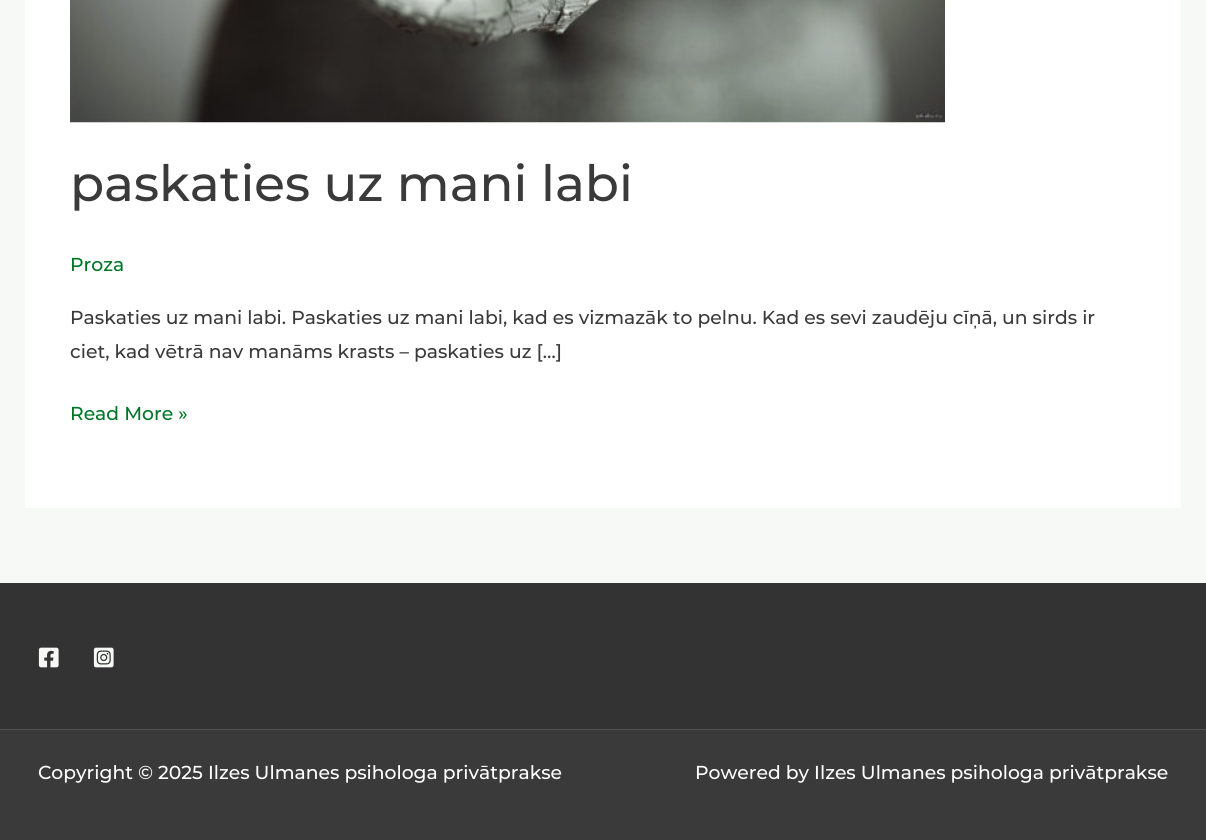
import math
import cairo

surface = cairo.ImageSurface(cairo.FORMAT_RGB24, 1206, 840)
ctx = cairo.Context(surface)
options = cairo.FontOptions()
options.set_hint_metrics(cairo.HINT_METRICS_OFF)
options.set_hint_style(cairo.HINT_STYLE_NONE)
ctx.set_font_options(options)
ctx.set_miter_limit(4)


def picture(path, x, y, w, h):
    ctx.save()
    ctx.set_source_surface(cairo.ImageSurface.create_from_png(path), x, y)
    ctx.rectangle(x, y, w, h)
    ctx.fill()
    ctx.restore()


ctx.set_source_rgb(0.965, 0.976, 0.965)
ctx.paint()
ctx.set_source_rgb(1, 1, 1)
ctx.rectangle(25, 0, 1156, 508)
ctx.fill()
picture("img1.png", 70, 0, 875, 123)
ctx.select_font_face("Montserrat Medium")
ctx.set_font_size(50)
ctx.set_source_rgb(0.227, 0.227, 0.227)
ctx.move_to(70, 201)
ctx.show_text("paskaties uz mani labi")
ctx.set_font_size(18.75)
ctx.set_source_rgb(0, 0.459, 0.153)
ctx.move_to(70, 271)
ctx.show_text("Proza")
ctx.set_source_rgb(0.227, 0.227, 0.227)
ctx.move_to(70, 324)
ctx.show_text("Paskaties uz mani labi. Paskaties uz mani labi, kad es vizmazāk to pelnu. Kad es sevi zaudēju cīņā, un sirds ir")
ctx.move_to(70, 358)
ctx.show_text("ciet, kad vētrā nav manāms krasts – paskaties uz […]")
ctx.set_source_rgb(0, 0.459, 0.153)
ctx.move_to(70, 420)
ctx.show_text("Read More »")
ctx.set_source_rgb(0.227, 0.227, 0.227)
ctx.rectangle(0, 730, 1206, 110)
ctx.fill()
ctx.set_source_rgb(0.2, 0.2, 0.2)
ctx.rectangle(0, 583, 1206, 146)
ctx.fill()
picture("img2.png", 38, 647, 21, 21)
picture("img3.png", 93, 647, 21, 21)
ctx.set_source_rgb(0.322, 0.322, 0.322)
ctx.rectangle(0, 729, 1206, 1)
ctx.fill()
ctx.set_source_rgb(1, 1, 1)
ctx.move_to(38, 779)
ctx.show_text("Copyright © 2025 Ilzes Ulmanes psihologa privātprakse")
ctx.move_to(695, 779)
ctx.show_text("Powered by Ilzes Ulmanes psihologa privātprakse")
surface.write_to_png("page.png")
